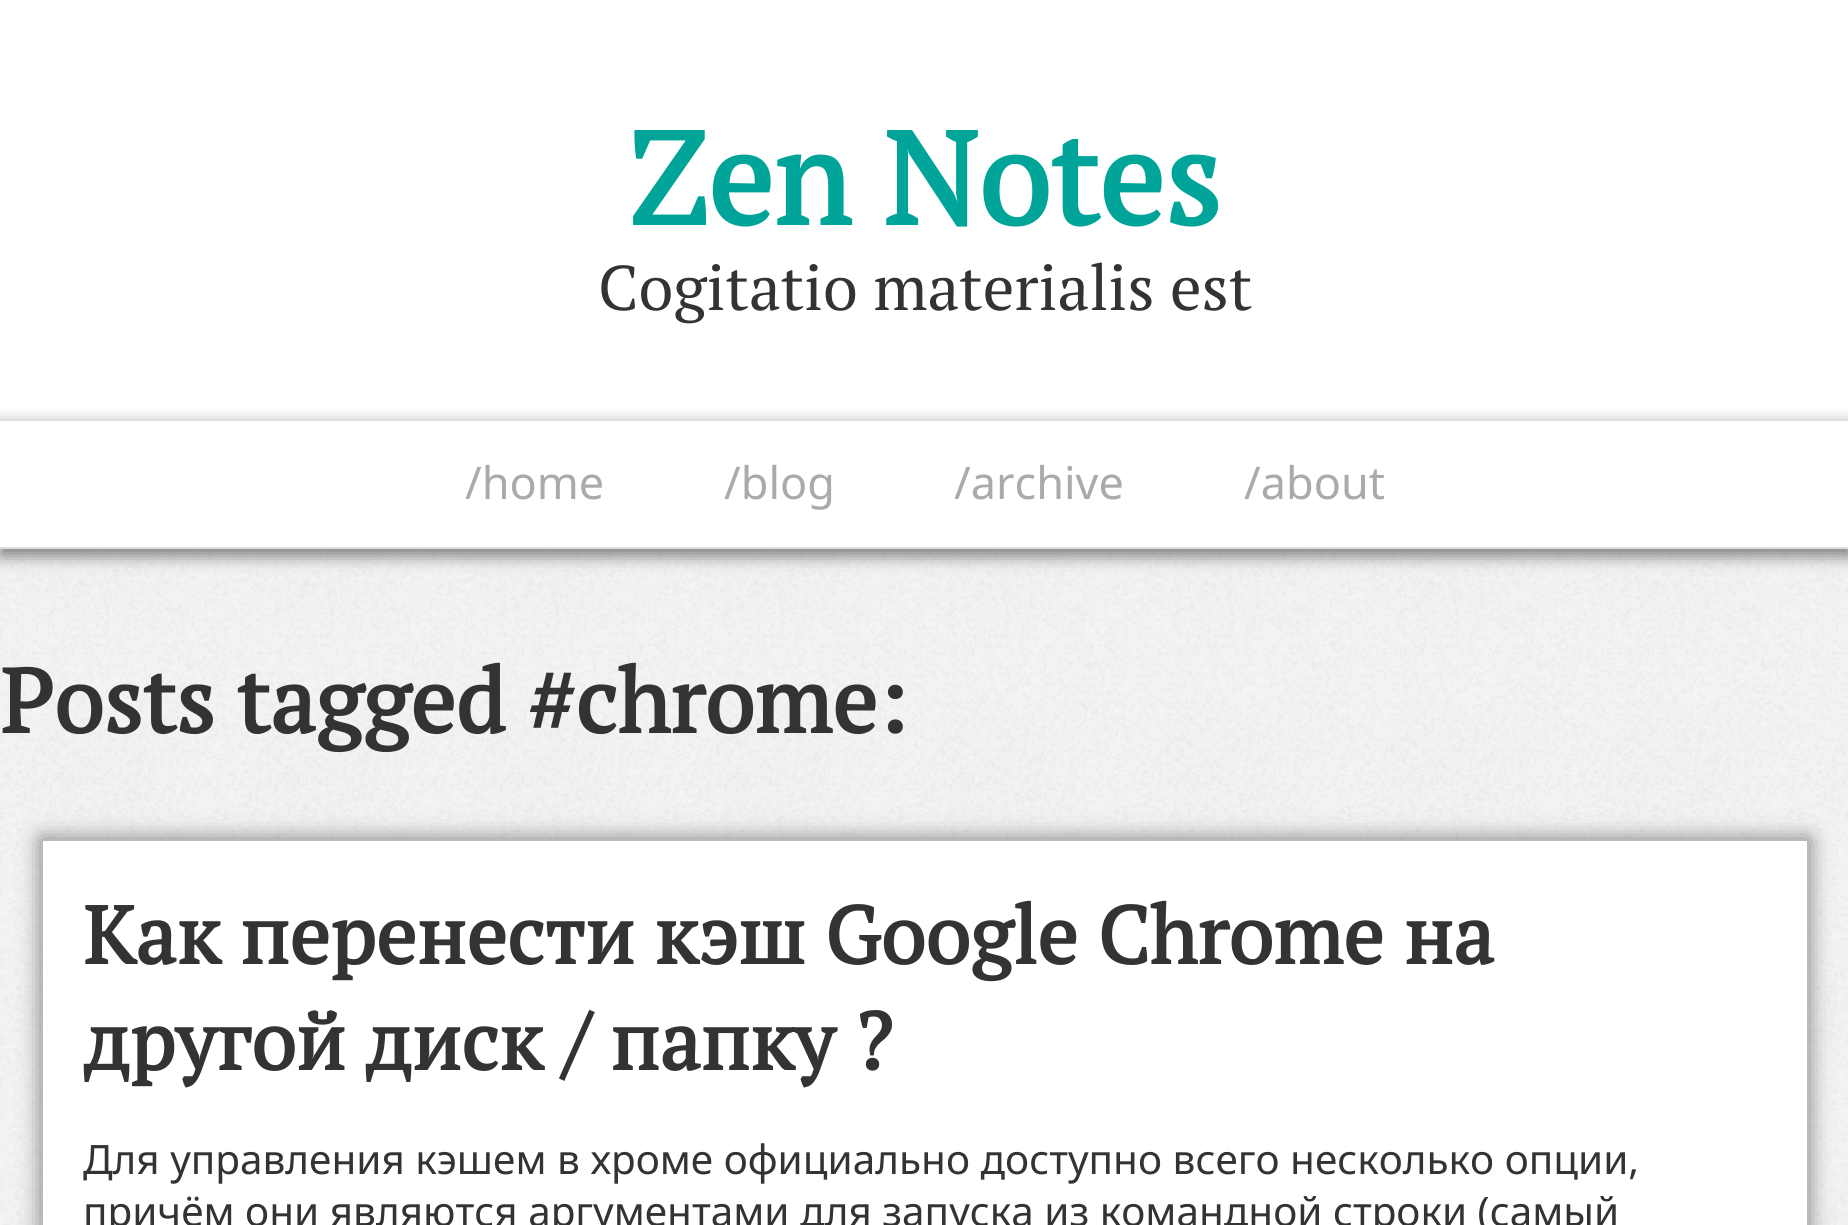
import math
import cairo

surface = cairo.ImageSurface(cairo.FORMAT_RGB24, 1848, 1225)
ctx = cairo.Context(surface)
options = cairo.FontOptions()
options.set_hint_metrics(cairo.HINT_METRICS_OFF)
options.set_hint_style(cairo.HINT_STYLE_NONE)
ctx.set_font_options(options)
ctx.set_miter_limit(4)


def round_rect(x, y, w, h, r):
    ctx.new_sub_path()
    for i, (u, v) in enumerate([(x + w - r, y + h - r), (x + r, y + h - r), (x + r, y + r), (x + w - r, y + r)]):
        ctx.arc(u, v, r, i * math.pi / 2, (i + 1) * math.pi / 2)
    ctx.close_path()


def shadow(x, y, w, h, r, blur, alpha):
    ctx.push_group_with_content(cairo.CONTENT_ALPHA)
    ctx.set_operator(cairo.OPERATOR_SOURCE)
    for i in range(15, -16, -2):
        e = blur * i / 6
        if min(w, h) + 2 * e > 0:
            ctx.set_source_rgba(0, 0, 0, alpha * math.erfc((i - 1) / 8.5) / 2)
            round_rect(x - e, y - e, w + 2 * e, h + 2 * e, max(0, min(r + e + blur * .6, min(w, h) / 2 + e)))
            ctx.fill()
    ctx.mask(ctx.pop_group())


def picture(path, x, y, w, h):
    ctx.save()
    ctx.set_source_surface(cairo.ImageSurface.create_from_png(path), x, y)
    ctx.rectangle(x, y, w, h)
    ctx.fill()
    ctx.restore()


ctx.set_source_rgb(1, 1, 1)
ctx.paint()
picture("img1.png", 0, 549, 1848, 676)
ctx.select_font_face("PT Serif", cairo.FONT_SLANT_NORMAL, cairo.FONT_WEIGHT_BOLD)
ctx.set_font_size(130.5)
ctx.set_source_rgb(0, 0.643, 0.596)
ctx.move_to(628, 225)
ctx.show_text("Zen Notes")
ctx.select_font_face("PT Serif")
ctx.set_font_size(63)
ctx.set_source_rgb(0.2, 0.2, 0.2)
ctx.move_to(598, 310)
ctx.show_text("Cogitatio materialis est")
ctx.set_source_rgb(0.486, 0.486, 0.486)
shadow(0, 425, 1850, 131, 0, 8, 1)
ctx.set_source_rgb(1, 1, 1)
ctx.rectangle(0, 421, 1848, 126)
ctx.fill()
ctx.set_source_rgb(0.871, 0.871, 0.871)
ctx.rectangle(0, 419, 1848, 2)
ctx.fill()
ctx.rectangle(0, 547, 1848, 2)
ctx.fill()
ctx.select_font_face("Noto Sans")
ctx.set_font_size(45)
ctx.set_source_rgb(0.667, 0.667, 0.667)
ctx.move_to(465, 499)
ctx.show_text("/home")
ctx.move_to(724, 499)
ctx.show_text("/blog")
ctx.move_to(954, 499)
ctx.show_text("/archive")
ctx.move_to(1244, 499)
ctx.show_text("/about")
ctx.select_font_face("PT Serif", cairo.FONT_SLANT_NORMAL, cairo.FONT_WEIGHT_BOLD)
ctx.set_font_size(90)
ctx.set_source_rgb(0.2, 0.2, 0.2)
ctx.move_to(0, 733)
ctx.show_text("Posts tagged #chrome:")
ctx.set_source_rgb(0.486, 0.486, 0.486)
shadow(41, 839, 1768, 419, 0, 11, 1)
ctx.set_source_rgb(1, 1, 1)
ctx.rectangle(42, 840, 1766, 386)
ctx.fill_preserve()
ctx.set_source_rgb(0.733, 0.733, 0.733)
ctx.stroke()
ctx.set_font_size(81)
ctx.set_source_rgb(0.2, 0.2, 0.2)
ctx.move_to(83, 964)
ctx.show_text("Как перенести кэш Google Chrome на")
ctx.move_to(83, 1070)
ctx.show_text("другой диск / папку ?")
ctx.select_font_face("Noto Sans")
ctx.set_font_size(40.5)
ctx.move_to(83, 1174)
ctx.show_text("Для управления кэшем в хроме официально доступно всего несколько опции,")
ctx.move_to(83, 1226)
ctx.show_text("причём они являются аргументами для запуска из командной строки (самый")
surface.write_to_png("page.png")
